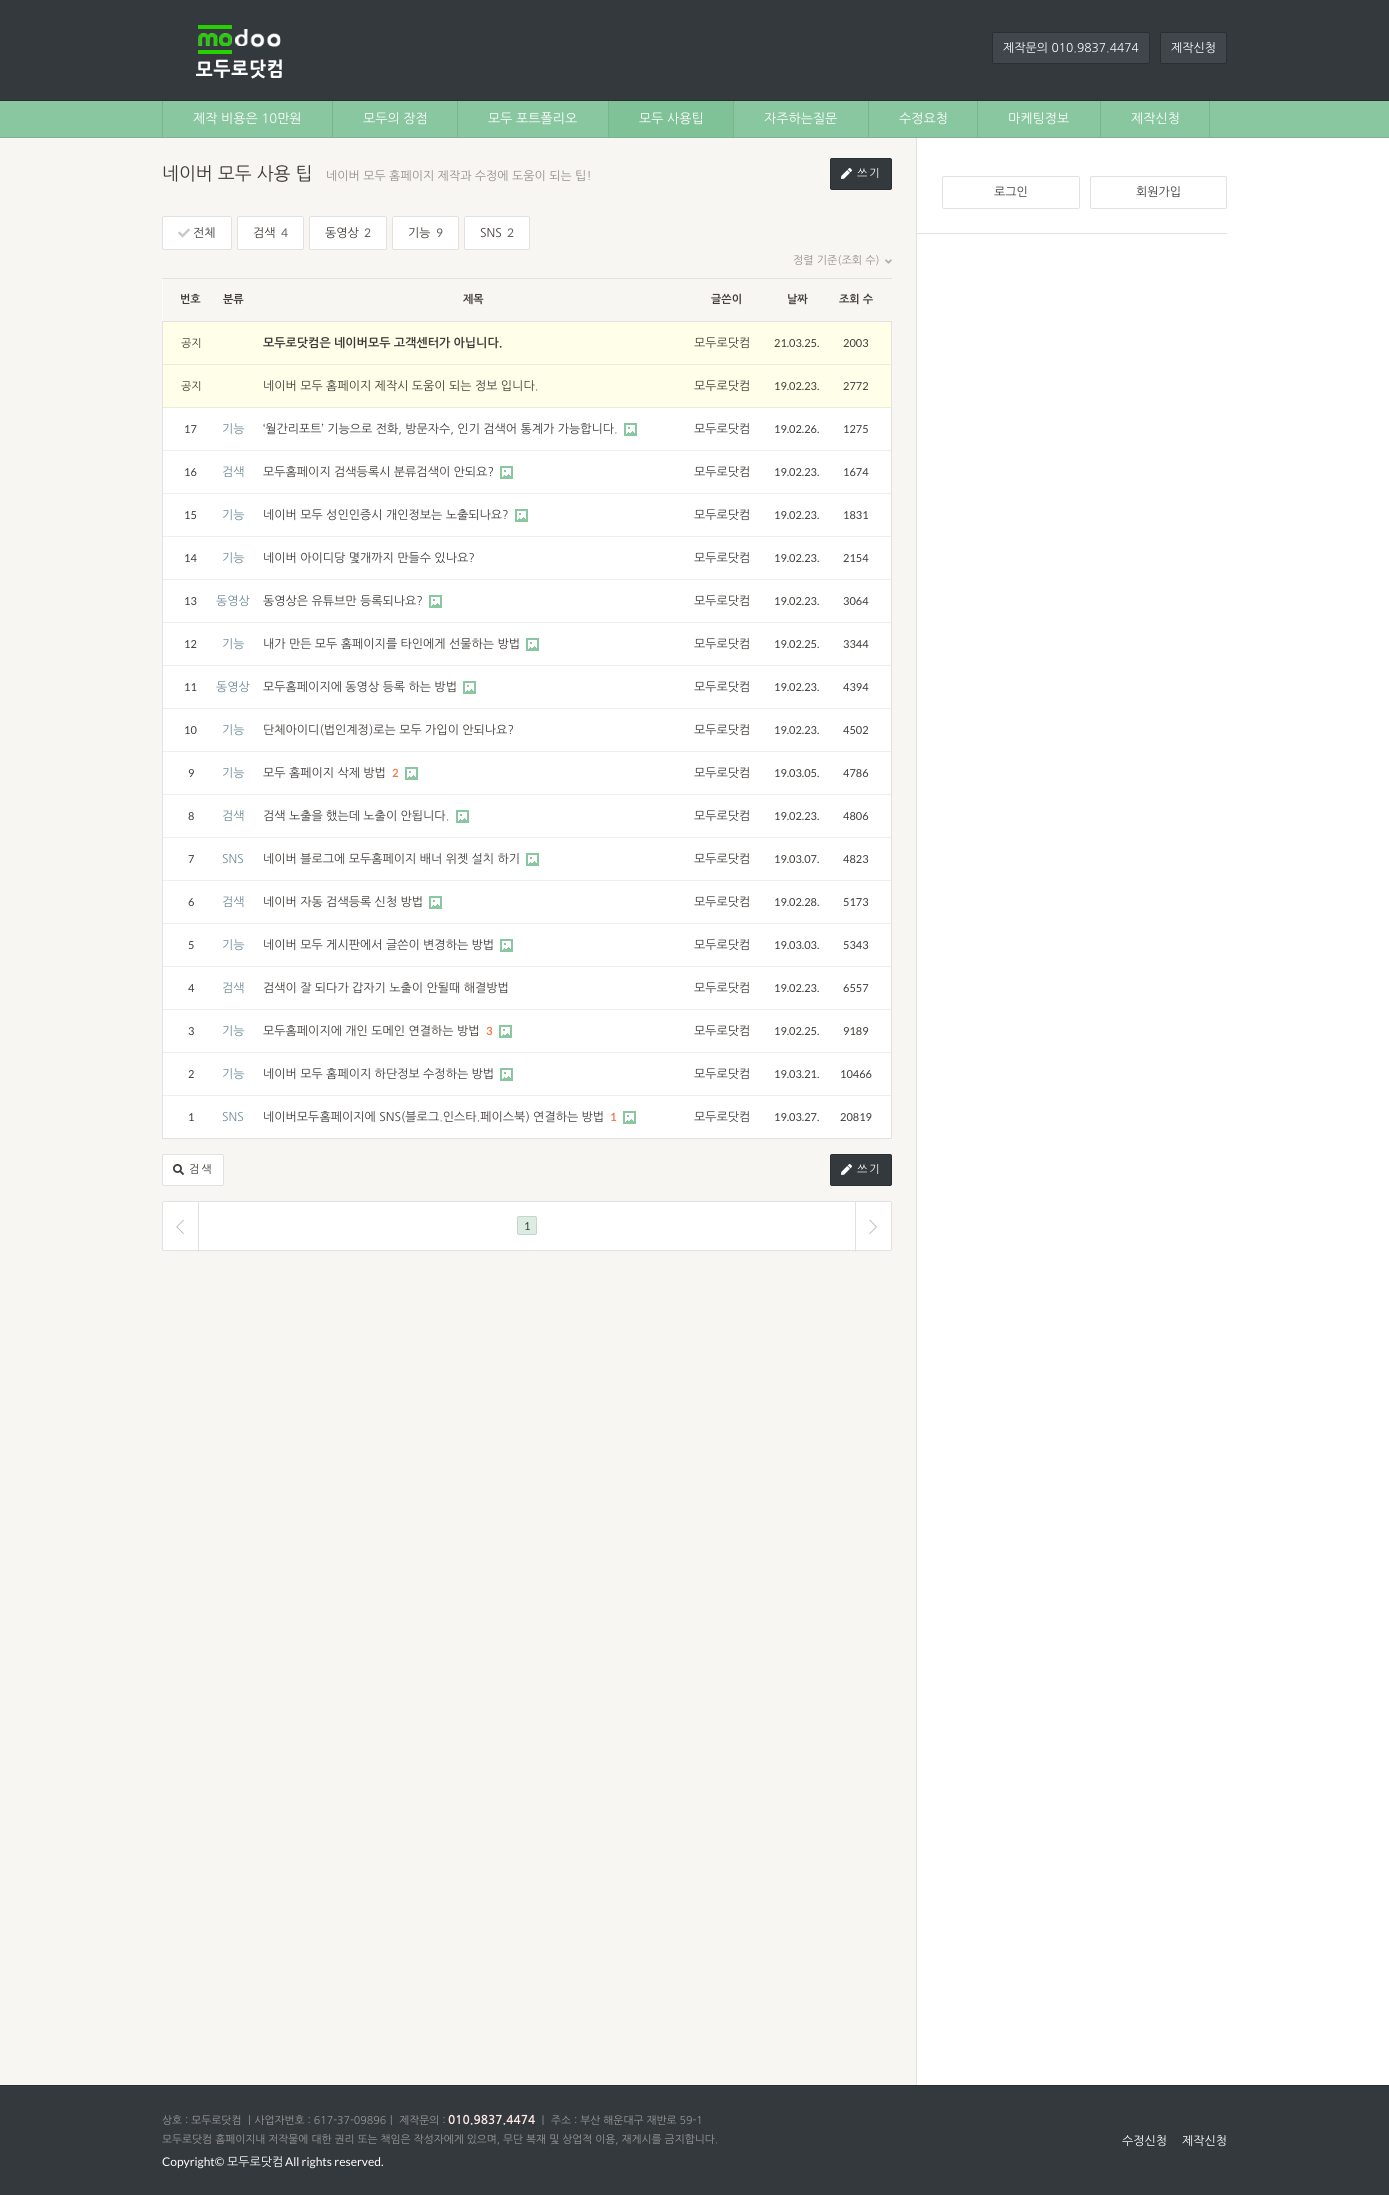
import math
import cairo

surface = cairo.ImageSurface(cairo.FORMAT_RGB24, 1389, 2195)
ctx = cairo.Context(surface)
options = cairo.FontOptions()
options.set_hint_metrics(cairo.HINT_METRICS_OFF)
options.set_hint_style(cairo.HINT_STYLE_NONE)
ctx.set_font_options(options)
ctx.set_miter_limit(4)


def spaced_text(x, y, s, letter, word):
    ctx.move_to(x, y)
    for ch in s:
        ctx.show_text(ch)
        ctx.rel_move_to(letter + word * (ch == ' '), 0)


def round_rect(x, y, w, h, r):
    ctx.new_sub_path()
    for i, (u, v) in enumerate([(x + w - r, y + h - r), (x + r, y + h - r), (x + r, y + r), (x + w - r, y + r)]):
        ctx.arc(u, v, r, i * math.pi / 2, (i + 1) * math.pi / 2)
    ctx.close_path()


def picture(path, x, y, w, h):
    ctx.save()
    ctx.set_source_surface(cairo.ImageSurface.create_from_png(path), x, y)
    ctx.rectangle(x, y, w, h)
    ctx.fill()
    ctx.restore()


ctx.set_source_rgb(1, 1, 1)
ctx.paint()
ctx.set_source_rgb(0.204, 0.224, 0.239)
ctx.rectangle(0, 0, 1389, 100)
ctx.fill()
ctx.set_source_rgb(0.482, 0.702, 0.565)
ctx.rectangle(0, 137, 1389, 1)
ctx.fill()
picture("img1.png", 196, 25, 86, 54)
ctx.set_source_rgb(0.251, 0.275, 0.294)
round_rect(992.5, 32.5, 157, 31, 1.5)
ctx.fill_preserve()
ctx.set_source_rgb(0.165, 0.18, 0.192)
ctx.set_line_width(1)
ctx.stroke()
ctx.select_font_face("NanumGothic")
ctx.set_font_size(12)
ctx.set_source_rgb(1, 1, 1)
ctx.move_to(1003, 52)
ctx.show_text("제작문의 010.9837.4474")
ctx.set_source_rgb(0.251, 0.275, 0.294)
round_rect(1160.5, 32.5, 66, 31, 1.5)
ctx.fill_preserve()
ctx.set_source_rgb(0.165, 0.18, 0.192)
ctx.stroke()
ctx.set_source_rgb(1, 1, 1)
ctx.move_to(1171, 52)
ctx.show_text("제작신청")
ctx.set_source_rgb(0.537, 0.78, 0.627)
ctx.rectangle(0, 101, 1389, 36)
ctx.fill()
ctx.set_source_rgb(0.165, 0.18, 0.192)
ctx.rectangle(0, 100, 1389, 1)
ctx.fill()
ctx.set_source_rgb(0.482, 0.702, 0.565)
ctx.rectangle(162, 101, 1, 36)
ctx.fill()
ctx.rectangle(332, 101, 1, 36)
ctx.fill()
ctx.set_font_size(13)
ctx.set_source_rgb(1, 1, 1)
ctx.move_to(193, 123)
ctx.show_text("제작 비용은 10만원")
ctx.set_source_rgb(0.482, 0.702, 0.565)
ctx.rectangle(457, 101, 1, 36)
ctx.fill()
ctx.set_source_rgb(1, 1, 1)
ctx.move_to(363, 123)
ctx.show_text("모두의 장점")
ctx.set_source_rgb(0.482, 0.702, 0.565)
ctx.rectangle(608, 101, 1, 36)
ctx.fill()
ctx.set_source_rgb(1, 1, 1)
ctx.move_to(488, 123)
ctx.show_text("모두 포트폴리오")
ctx.set_source_rgb(0.482, 0.702, 0.565)
ctx.rectangle(733, 101, 1, 36)
ctx.fill()
ctx.set_source_rgb(0.498, 0.761, 0.596)
ctx.rectangle(609, 101, 124, 36)
ctx.fill()
ctx.set_source_rgb(1, 1, 1)
ctx.move_to(639, 123)
ctx.show_text("모두 사용팁")
ctx.set_source_rgb(0.482, 0.702, 0.565)
ctx.rectangle(868, 101, 1, 36)
ctx.fill()
ctx.set_source_rgb(1, 1, 1)
ctx.move_to(764, 123)
ctx.show_text("자주하는질문")
ctx.set_source_rgb(0.482, 0.702, 0.565)
ctx.rectangle(977, 101, 1, 36)
ctx.fill()
ctx.set_source_rgb(1, 1, 1)
ctx.move_to(899, 123)
ctx.show_text("수정요청")
ctx.set_source_rgb(0.482, 0.702, 0.565)
ctx.rectangle(1100, 101, 1, 36)
ctx.fill()
ctx.set_source_rgb(1, 1, 1)
ctx.move_to(1008, 123)
ctx.show_text("마케팅정보")
ctx.set_source_rgb(0.482, 0.702, 0.565)
ctx.rectangle(1209, 101, 1, 36)
ctx.fill()
ctx.set_source_rgb(1, 1, 1)
ctx.move_to(1131, 123)
ctx.show_text("제작신청")
ctx.set_source_rgb(0.965, 0.961, 0.953)
ctx.rectangle(0, 138, 916, 1947)
ctx.fill()
ctx.set_source_rgb(0.89, 0.886, 0.878)
ctx.rectangle(916, 138, 1, 1947)
ctx.fill()
ctx.set_font_size(18)
ctx.set_source_rgb(0.243, 0.227, 0.216)
ctx.move_to(162, 180)
ctx.show_text("네이버 모두 사용 팁")
ctx.set_font_size(12)
ctx.set_source_rgb(0.584, 0.557, 0.533)
ctx.move_to(326, 180)
ctx.show_text("네이버 모두 홈페이지 제작과 수정에 도움이 되는 팁!")
ctx.set_source_rgb(0.204, 0.224, 0.239)
round_rect(830.5, 158.5, 61, 31, 1.5)
ctx.fill_preserve()
ctx.set_source_rgb(0.165, 0.18, 0.192)
ctx.stroke()
picture("img2.png", 841, 168, 11, 11)
ctx.set_font_size(11)
ctx.set_source_rgb(1, 1, 1)
spaced_text(857, 177, "쓰기", 2, 0)
round_rect(162.5, 216.5, 69, 33, 1.5)
ctx.fill_preserve()
ctx.set_source_rgb(0.89, 0.886, 0.878)
ctx.stroke()
picture("img3.png", 178, 228, 12, 10)
ctx.set_font_size(12)
ctx.set_source_rgb(0.243, 0.227, 0.216)
ctx.move_to(193, 237)
ctx.show_text("전체")
ctx.set_source_rgb(1, 1, 1)
round_rect(237.5, 216.5, 66, 33, 1.5)
ctx.fill_preserve()
ctx.set_source_rgb(0.89, 0.886, 0.878)
ctx.stroke()
ctx.set_source_rgb(0.243, 0.227, 0.216)
ctx.move_to(253, 237)
ctx.show_text("검색")
ctx.select_font_face("Lato")
ctx.set_source_rgb(0.396, 0.38, 0.373)
ctx.move_to(281, 237)
ctx.show_text("4")
ctx.set_source_rgb(1, 1, 1)
round_rect(309.5, 216.5, 77, 33, 1.5)
ctx.fill_preserve()
ctx.set_source_rgb(0.89, 0.886, 0.878)
ctx.stroke()
ctx.select_font_face("NanumGothic")
ctx.set_source_rgb(0.243, 0.227, 0.216)
ctx.move_to(325, 237)
ctx.show_text("동영상")
ctx.select_font_face("Lato")
ctx.set_source_rgb(0.396, 0.38, 0.373)
ctx.move_to(364, 237)
ctx.show_text("2")
ctx.set_source_rgb(1, 1, 1)
round_rect(392.5, 216.5, 66, 33, 1.5)
ctx.fill_preserve()
ctx.set_source_rgb(0.89, 0.886, 0.878)
ctx.stroke()
ctx.select_font_face("NanumGothic")
ctx.set_source_rgb(0.243, 0.227, 0.216)
ctx.move_to(408, 237)
ctx.show_text("기능")
ctx.select_font_face("Lato")
ctx.set_source_rgb(0.396, 0.38, 0.373)
ctx.move_to(436, 237)
ctx.show_text("9")
ctx.set_source_rgb(1, 1, 1)
round_rect(464.5, 216.5, 65, 33, 1.5)
ctx.fill_preserve()
ctx.set_source_rgb(0.89, 0.886, 0.878)
ctx.stroke()
ctx.select_font_face("NanumGothic")
ctx.set_source_rgb(0.243, 0.227, 0.216)
ctx.move_to(480, 237)
ctx.show_text("SNS")
ctx.select_font_face("Lato")
ctx.set_source_rgb(0.396, 0.38, 0.373)
ctx.move_to(507, 237)
ctx.show_text("2")
ctx.select_font_face("NanumGothic")
ctx.set_font_size(11)
ctx.set_source_rgb(0.584, 0.557, 0.533)
ctx.move_to(793, 264)
ctx.show_text("정렬 기준(조회 수)")
picture("img4.png", 885, 259, 7, 5)
ctx.set_source_rgb(1, 1, 1)
ctx.rectangle(162, 279, 729, 859)
ctx.fill()
ctx.set_source_rgb(0.89, 0.886, 0.878)
ctx.rectangle(162, 278, 730, 1)
ctx.fill()
ctx.rectangle(162, 321, 730, 1)
ctx.fill()
ctx.set_source_rgb(0.965, 0.961, 0.953)
ctx.rectangle(163, 279, 728, 42)
ctx.fill()
ctx.select_font_face("NanumGothic", cairo.FONT_SLANT_NORMAL, cairo.FONT_WEIGHT_BOLD)
ctx.set_source_rgb(0.243, 0.227, 0.216)
ctx.move_to(180, 303)
ctx.show_text("번호")
ctx.move_to(223, 303)
ctx.show_text("분류")
ctx.move_to(463, 303)
ctx.show_text("제목")
ctx.move_to(711, 303)
ctx.show_text("글쓴이")
ctx.move_to(787, 303)
ctx.show_text("날짜")
ctx.move_to(839, 303)
ctx.show_text("조회 수")
ctx.set_source_rgb(1, 1, 0.914)
ctx.rectangle(163, 322, 728, 42)
ctx.fill()
ctx.set_source_rgb(0.922, 0.922, 0.843)
ctx.rectangle(162, 364, 730, 1)
ctx.fill()
ctx.select_font_face("NanumGothic")
ctx.set_source_rgb(0.243, 0.227, 0.216)
ctx.move_to(181, 347)
ctx.show_text("공지")
ctx.select_font_face("NanumGothic", cairo.FONT_SLANT_NORMAL, cairo.FONT_WEIGHT_BOLD)
ctx.set_font_size(12)
ctx.move_to(263, 347)
ctx.show_text("모두로닷컴은 네이버모두 고객센터가 아닙니다.")
ctx.select_font_face("NanumGothic")
ctx.move_to(694, 347)
ctx.show_text("모두로닷컴")
ctx.select_font_face("Lato")
ctx.set_font_size(11)
ctx.move_to(774, 347)
ctx.show_text("21.03.25.")
ctx.move_to(843, 347)
ctx.show_text("2003")
ctx.set_source_rgb(1, 1, 0.914)
ctx.rectangle(163, 365, 728, 42)
ctx.fill()
ctx.set_source_rgb(0.922, 0.922, 0.843)
ctx.rectangle(162, 407, 730, 1)
ctx.fill()
ctx.select_font_face("NanumGothic")
ctx.set_source_rgb(0.243, 0.227, 0.216)
ctx.move_to(181, 390)
ctx.show_text("공지")
ctx.set_font_size(12)
ctx.move_to(263, 390)
ctx.show_text("네이버 모두 홈페이지 제작시 도움이 되는 정보 입니다.")
ctx.move_to(694, 390)
ctx.show_text("모두로닷컴")
ctx.select_font_face("Lato")
ctx.set_font_size(11)
ctx.move_to(774, 390)
ctx.show_text("19.02.23.")
ctx.move_to(843, 390)
ctx.show_text("2772")
ctx.set_source_rgb(0.937, 0.937, 0.929)
ctx.rectangle(162, 450, 730, 1)
ctx.fill()
ctx.set_source_rgb(0.243, 0.227, 0.216)
ctx.move_to(184, 433)
ctx.show_text("17")
ctx.select_font_face("NanumGothic")
ctx.set_font_size(12)
ctx.set_source_rgb(0.431, 0.541, 0.596)
ctx.move_to(222, 433)
ctx.show_text("기능")
ctx.set_source_rgb(0.243, 0.227, 0.216)
ctx.move_to(263, 433)
ctx.show_text("‘월간리포트’ 기능으로 전화, 방문자수, 인기 검색어 통계가 가능합니다.")
ctx.set_source_rgb(0.537, 0.78, 0.627)
ctx.rectangle(624, 423, 13, 13)
ctx.fill()
picture("img5.png", 626, 425, 9, 9)
ctx.set_source_rgb(0.243, 0.227, 0.216)
ctx.move_to(694, 433)
ctx.show_text("모두로닷컴")
ctx.select_font_face("Lato")
ctx.set_font_size(11)
ctx.move_to(774, 433)
ctx.show_text("19.02.26.")
ctx.move_to(843, 433)
ctx.show_text("1275")
ctx.set_source_rgb(0.937, 0.937, 0.929)
ctx.rectangle(162, 493, 730, 1)
ctx.fill()
ctx.set_source_rgb(0.243, 0.227, 0.216)
ctx.move_to(184, 476)
ctx.show_text("16")
ctx.select_font_face("NanumGothic")
ctx.set_font_size(12)
ctx.set_source_rgb(0.431, 0.541, 0.596)
ctx.move_to(222, 476)
ctx.show_text("검색")
ctx.set_source_rgb(0.243, 0.227, 0.216)
ctx.move_to(263, 476)
ctx.show_text("모두홈페이지 검색등록시 분류검색이 안되요?")
ctx.set_source_rgb(0.537, 0.78, 0.627)
ctx.rectangle(500, 466, 13, 13)
ctx.fill()
picture("img5.png", 502, 468, 9, 9)
ctx.set_source_rgb(0.243, 0.227, 0.216)
ctx.move_to(694, 476)
ctx.show_text("모두로닷컴")
ctx.select_font_face("Lato")
ctx.set_font_size(11)
ctx.move_to(774, 476)
ctx.show_text("19.02.23.")
ctx.move_to(843, 476)
ctx.show_text("1674")
ctx.set_source_rgb(0.937, 0.937, 0.929)
ctx.rectangle(162, 536, 730, 1)
ctx.fill()
ctx.set_source_rgb(0.243, 0.227, 0.216)
ctx.move_to(184, 519)
ctx.show_text("15")
ctx.select_font_face("NanumGothic")
ctx.set_font_size(12)
ctx.set_source_rgb(0.431, 0.541, 0.596)
ctx.move_to(222, 519)
ctx.show_text("기능")
ctx.set_source_rgb(0.243, 0.227, 0.216)
ctx.move_to(263, 519)
ctx.show_text("네이버 모두 성인인증시 개인정보는 노출되나요?")
ctx.set_source_rgb(0.537, 0.78, 0.627)
ctx.rectangle(515, 509, 13, 13)
ctx.fill()
picture("img5.png", 517, 511, 9, 9)
ctx.set_source_rgb(0.243, 0.227, 0.216)
ctx.move_to(694, 519)
ctx.show_text("모두로닷컴")
ctx.select_font_face("Lato")
ctx.set_font_size(11)
ctx.move_to(774, 519)
ctx.show_text("19.02.23.")
ctx.move_to(843, 519)
ctx.show_text("1831")
ctx.set_source_rgb(0.937, 0.937, 0.929)
ctx.rectangle(162, 579, 730, 1)
ctx.fill()
ctx.set_source_rgb(0.243, 0.227, 0.216)
ctx.move_to(184, 562)
ctx.show_text("14")
ctx.select_font_face("NanumGothic")
ctx.set_font_size(12)
ctx.set_source_rgb(0.431, 0.541, 0.596)
ctx.move_to(222, 562)
ctx.show_text("기능")
ctx.set_source_rgb(0.243, 0.227, 0.216)
ctx.move_to(263, 562)
ctx.show_text("네이버 아이디당 몇개까지 만들수 있나요?")
ctx.move_to(694, 562)
ctx.show_text("모두로닷컴")
ctx.select_font_face("Lato")
ctx.set_font_size(11)
ctx.move_to(774, 562)
ctx.show_text("19.02.23.")
ctx.move_to(843, 562)
ctx.show_text("2154")
ctx.set_source_rgb(0.937, 0.937, 0.929)
ctx.rectangle(162, 622, 730, 1)
ctx.fill()
ctx.set_source_rgb(0.243, 0.227, 0.216)
ctx.move_to(184, 605)
ctx.show_text("13")
ctx.select_font_face("NanumGothic")
ctx.set_font_size(12)
ctx.set_source_rgb(0.431, 0.541, 0.596)
ctx.move_to(216, 605)
ctx.show_text("동영상")
ctx.set_source_rgb(0.243, 0.227, 0.216)
ctx.move_to(263, 605)
ctx.show_text("동영상은 유튜브만 등록되나요?")
ctx.set_source_rgb(0.537, 0.78, 0.627)
ctx.rectangle(429, 595, 13, 13)
ctx.fill()
picture("img5.png", 431, 597, 9, 9)
ctx.set_source_rgb(0.243, 0.227, 0.216)
ctx.move_to(694, 605)
ctx.show_text("모두로닷컴")
ctx.select_font_face("Lato")
ctx.set_font_size(11)
ctx.move_to(774, 605)
ctx.show_text("19.02.23.")
ctx.move_to(843, 605)
ctx.show_text("3064")
ctx.set_source_rgb(0.937, 0.937, 0.929)
ctx.rectangle(162, 665, 730, 1)
ctx.fill()
ctx.set_source_rgb(0.243, 0.227, 0.216)
ctx.move_to(184, 648)
ctx.show_text("12")
ctx.select_font_face("NanumGothic")
ctx.set_font_size(12)
ctx.set_source_rgb(0.431, 0.541, 0.596)
ctx.move_to(222, 648)
ctx.show_text("기능")
ctx.set_source_rgb(0.243, 0.227, 0.216)
ctx.move_to(263, 648)
ctx.show_text("내가 만든 모두 홈페이지를 타인에게 선물하는 방법")
ctx.set_source_rgb(0.537, 0.78, 0.627)
ctx.rectangle(526, 638, 13, 13)
ctx.fill()
picture("img5.png", 528, 640, 9, 9)
ctx.set_source_rgb(0.243, 0.227, 0.216)
ctx.move_to(694, 648)
ctx.show_text("모두로닷컴")
ctx.select_font_face("Lato")
ctx.set_font_size(11)
ctx.move_to(774, 648)
ctx.show_text("19.02.25.")
ctx.move_to(843, 648)
ctx.show_text("3344")
ctx.set_source_rgb(0.937, 0.937, 0.929)
ctx.rectangle(162, 708, 730, 1)
ctx.fill()
ctx.set_source_rgb(0.243, 0.227, 0.216)
ctx.move_to(184, 691)
ctx.show_text("11")
ctx.select_font_face("NanumGothic")
ctx.set_font_size(12)
ctx.set_source_rgb(0.431, 0.541, 0.596)
ctx.move_to(216, 691)
ctx.show_text("동영상")
ctx.set_source_rgb(0.243, 0.227, 0.216)
ctx.move_to(263, 691)
ctx.show_text("모두홈페이지에 동영상 등록 하는 방법")
ctx.set_source_rgb(0.537, 0.78, 0.627)
ctx.rectangle(463, 681, 13, 13)
ctx.fill()
picture("img5.png", 465, 683, 9, 9)
ctx.set_source_rgb(0.243, 0.227, 0.216)
ctx.move_to(694, 691)
ctx.show_text("모두로닷컴")
ctx.select_font_face("Lato")
ctx.set_font_size(11)
ctx.move_to(774, 691)
ctx.show_text("19.02.23.")
ctx.move_to(843, 691)
ctx.show_text("4394")
ctx.set_source_rgb(0.937, 0.937, 0.929)
ctx.rectangle(162, 751, 730, 1)
ctx.fill()
ctx.set_source_rgb(0.243, 0.227, 0.216)
ctx.move_to(184, 734)
ctx.show_text("10")
ctx.select_font_face("NanumGothic")
ctx.set_font_size(12)
ctx.set_source_rgb(0.431, 0.541, 0.596)
ctx.move_to(222, 734)
ctx.show_text("기능")
ctx.set_source_rgb(0.243, 0.227, 0.216)
ctx.move_to(263, 734)
ctx.show_text("단체아이디(법인계정)로는 모두 가입이 안되나요?")
ctx.move_to(694, 734)
ctx.show_text("모두로닷컴")
ctx.select_font_face("Lato")
ctx.set_font_size(11)
ctx.move_to(774, 734)
ctx.show_text("19.02.23.")
ctx.move_to(843, 734)
ctx.show_text("4502")
ctx.set_source_rgb(0.937, 0.937, 0.929)
ctx.rectangle(162, 794, 730, 1)
ctx.fill()
ctx.set_source_rgb(0.243, 0.227, 0.216)
ctx.move_to(188, 777)
ctx.show_text("9")
ctx.select_font_face("NanumGothic")
ctx.set_font_size(12)
ctx.set_source_rgb(0.431, 0.541, 0.596)
ctx.move_to(222, 777)
ctx.show_text("기능")
ctx.set_source_rgb(0.243, 0.227, 0.216)
ctx.move_to(263, 777)
ctx.show_text("모두 홈페이지 삭제 방법")
ctx.select_font_face("Lato", cairo.FONT_SLANT_NORMAL, cairo.FONT_WEIGHT_BOLD)
ctx.set_font_size(11)
ctx.set_source_rgb(0.965, 0.471, 0.275)
ctx.move_to(392, 777)
ctx.show_text("2")
ctx.set_source_rgb(0.537, 0.78, 0.627)
ctx.rectangle(405, 767, 13, 13)
ctx.fill()
picture("img5.png", 407, 769, 9, 9)
ctx.select_font_face("NanumGothic")
ctx.set_font_size(12)
ctx.set_source_rgb(0.243, 0.227, 0.216)
ctx.move_to(694, 777)
ctx.show_text("모두로닷컴")
ctx.select_font_face("Lato")
ctx.set_font_size(11)
ctx.move_to(774, 777)
ctx.show_text("19.03.05.")
ctx.move_to(843, 777)
ctx.show_text("4786")
ctx.set_source_rgb(0.937, 0.937, 0.929)
ctx.rectangle(162, 837, 730, 1)
ctx.fill()
ctx.set_source_rgb(0.243, 0.227, 0.216)
ctx.move_to(188, 820)
ctx.show_text("8")
ctx.select_font_face("NanumGothic")
ctx.set_font_size(12)
ctx.set_source_rgb(0.431, 0.541, 0.596)
ctx.move_to(222, 820)
ctx.show_text("검색")
ctx.set_source_rgb(0.243, 0.227, 0.216)
ctx.move_to(263, 820)
ctx.show_text("검색 노출을 했는데 노출이 안됩니다.")
ctx.set_source_rgb(0.537, 0.78, 0.627)
ctx.rectangle(456, 810, 13, 13)
ctx.fill()
picture("img5.png", 458, 812, 9, 9)
ctx.set_source_rgb(0.243, 0.227, 0.216)
ctx.move_to(694, 820)
ctx.show_text("모두로닷컴")
ctx.select_font_face("Lato")
ctx.set_font_size(11)
ctx.move_to(774, 820)
ctx.show_text("19.02.23.")
ctx.move_to(843, 820)
ctx.show_text("4806")
ctx.set_source_rgb(0.937, 0.937, 0.929)
ctx.rectangle(162, 880, 730, 1)
ctx.fill()
ctx.set_source_rgb(0.243, 0.227, 0.216)
ctx.move_to(188, 863)
ctx.show_text("7")
ctx.select_font_face("NanumGothic")
ctx.set_font_size(12)
ctx.set_source_rgb(0.431, 0.541, 0.596)
ctx.move_to(222, 863)
ctx.show_text("SNS")
ctx.set_source_rgb(0.243, 0.227, 0.216)
ctx.move_to(263, 863)
ctx.show_text("네이버 블로그에 모두홈페이지 배너 위젯 설치 하기")
ctx.set_source_rgb(0.537, 0.78, 0.627)
ctx.rectangle(526, 853, 13, 13)
ctx.fill()
picture("img5.png", 528, 855, 9, 9)
ctx.set_source_rgb(0.243, 0.227, 0.216)
ctx.move_to(694, 863)
ctx.show_text("모두로닷컴")
ctx.select_font_face("Lato")
ctx.set_font_size(11)
ctx.move_to(774, 863)
ctx.show_text("19.03.07.")
ctx.move_to(843, 863)
ctx.show_text("4823")
ctx.set_source_rgb(0.937, 0.937, 0.929)
ctx.rectangle(162, 923, 730, 1)
ctx.fill()
ctx.set_source_rgb(0.243, 0.227, 0.216)
ctx.move_to(188, 906)
ctx.show_text("6")
ctx.select_font_face("NanumGothic")
ctx.set_font_size(12)
ctx.set_source_rgb(0.431, 0.541, 0.596)
ctx.move_to(222, 906)
ctx.show_text("검색")
ctx.set_source_rgb(0.243, 0.227, 0.216)
ctx.move_to(263, 906)
ctx.show_text("네이버 자동 검색등록 신청 방법")
ctx.set_source_rgb(0.537, 0.78, 0.627)
ctx.rectangle(429, 896, 13, 13)
ctx.fill()
picture("img5.png", 431, 898, 9, 9)
ctx.set_source_rgb(0.243, 0.227, 0.216)
ctx.move_to(694, 906)
ctx.show_text("모두로닷컴")
ctx.select_font_face("Lato")
ctx.set_font_size(11)
ctx.move_to(774, 906)
ctx.show_text("19.02.28.")
ctx.move_to(843, 906)
ctx.show_text("5173")
ctx.set_source_rgb(0.937, 0.937, 0.929)
ctx.rectangle(162, 966, 730, 1)
ctx.fill()
ctx.set_source_rgb(0.243, 0.227, 0.216)
ctx.move_to(188, 949)
ctx.show_text("5")
ctx.select_font_face("NanumGothic")
ctx.set_font_size(12)
ctx.set_source_rgb(0.431, 0.541, 0.596)
ctx.move_to(222, 949)
ctx.show_text("기능")
ctx.set_source_rgb(0.243, 0.227, 0.216)
ctx.move_to(263, 949)
ctx.show_text("네이버 모두 게시판에서 글쓴이 변경하는 방법")
ctx.set_source_rgb(0.537, 0.78, 0.627)
ctx.rectangle(500, 939, 13, 13)
ctx.fill()
picture("img5.png", 502, 941, 9, 9)
ctx.set_source_rgb(0.243, 0.227, 0.216)
ctx.move_to(694, 949)
ctx.show_text("모두로닷컴")
ctx.select_font_face("Lato")
ctx.set_font_size(11)
ctx.move_to(774, 949)
ctx.show_text("19.03.03.")
ctx.move_to(843, 949)
ctx.show_text("5343")
ctx.set_source_rgb(0.937, 0.937, 0.929)
ctx.rectangle(162, 1009, 730, 1)
ctx.fill()
ctx.set_source_rgb(0.243, 0.227, 0.216)
ctx.move_to(188, 992)
ctx.show_text("4")
ctx.select_font_face("NanumGothic")
ctx.set_font_size(12)
ctx.set_source_rgb(0.431, 0.541, 0.596)
ctx.move_to(222, 992)
ctx.show_text("검색")
ctx.set_source_rgb(0.243, 0.227, 0.216)
ctx.move_to(263, 992)
ctx.show_text("검색이 잘 되다가 갑자기 노출이 안될때 해결방법")
ctx.move_to(694, 992)
ctx.show_text("모두로닷컴")
ctx.select_font_face("Lato")
ctx.set_font_size(11)
ctx.move_to(774, 992)
ctx.show_text("19.02.23.")
ctx.move_to(843, 992)
ctx.show_text("6557")
ctx.set_source_rgb(0.937, 0.937, 0.929)
ctx.rectangle(162, 1052, 730, 1)
ctx.fill()
ctx.set_source_rgb(0.243, 0.227, 0.216)
ctx.move_to(188, 1035)
ctx.show_text("3")
ctx.select_font_face("NanumGothic")
ctx.set_font_size(12)
ctx.set_source_rgb(0.431, 0.541, 0.596)
ctx.move_to(222, 1035)
ctx.show_text("기능")
ctx.set_source_rgb(0.243, 0.227, 0.216)
ctx.move_to(263, 1035)
ctx.show_text("모두홈페이지에 개인 도메인 연결하는 방법")
ctx.select_font_face("Lato", cairo.FONT_SLANT_NORMAL, cairo.FONT_WEIGHT_BOLD)
ctx.set_font_size(11)
ctx.set_source_rgb(0.965, 0.471, 0.275)
ctx.move_to(486, 1035)
ctx.show_text("3")
ctx.set_source_rgb(0.537, 0.78, 0.627)
ctx.rectangle(499, 1025, 13, 13)
ctx.fill()
picture("img5.png", 501, 1027, 9, 9)
ctx.select_font_face("NanumGothic")
ctx.set_font_size(12)
ctx.set_source_rgb(0.243, 0.227, 0.216)
ctx.move_to(694, 1035)
ctx.show_text("모두로닷컴")
ctx.select_font_face("Lato")
ctx.set_font_size(11)
ctx.move_to(774, 1035)
ctx.show_text("19.02.25.")
ctx.move_to(843, 1035)
ctx.show_text("9189")
ctx.set_source_rgb(0.937, 0.937, 0.929)
ctx.rectangle(162, 1095, 730, 1)
ctx.fill()
ctx.set_source_rgb(0.243, 0.227, 0.216)
ctx.move_to(188, 1078)
ctx.show_text("2")
ctx.select_font_face("NanumGothic")
ctx.set_font_size(12)
ctx.set_source_rgb(0.431, 0.541, 0.596)
ctx.move_to(222, 1078)
ctx.show_text("기능")
ctx.set_source_rgb(0.243, 0.227, 0.216)
ctx.move_to(263, 1078)
ctx.show_text("네이버 모두 홈페이지 하단정보 수정하는 방법")
ctx.set_source_rgb(0.537, 0.78, 0.627)
ctx.rectangle(500, 1068, 13, 13)
ctx.fill()
picture("img5.png", 502, 1070, 9, 9)
ctx.set_source_rgb(0.243, 0.227, 0.216)
ctx.move_to(694, 1078)
ctx.show_text("모두로닷컴")
ctx.select_font_face("Lato")
ctx.set_font_size(11)
ctx.move_to(774, 1078)
ctx.show_text("19.03.21.")
ctx.move_to(840, 1078)
ctx.show_text("10466")
ctx.set_source_rgb(0.89, 0.886, 0.878)
ctx.rectangle(162, 1138, 730, 1)
ctx.fill()
ctx.rectangle(162, 321, 1, 818)
ctx.fill()
ctx.set_source_rgb(0.243, 0.227, 0.216)
ctx.move_to(188, 1121)
ctx.show_text("1")
ctx.select_font_face("NanumGothic")
ctx.set_font_size(12)
ctx.set_source_rgb(0.431, 0.541, 0.596)
ctx.move_to(222, 1121)
ctx.show_text("SNS")
ctx.set_source_rgb(0.243, 0.227, 0.216)
ctx.move_to(263, 1121)
ctx.show_text("네이버모두홈페이지에 SNS(블로그.인스타.페이스북) 연결하는 방법")
ctx.select_font_face("Lato", cairo.FONT_SLANT_NORMAL, cairo.FONT_WEIGHT_BOLD)
ctx.set_font_size(11)
ctx.set_source_rgb(0.965, 0.471, 0.275)
ctx.move_to(610, 1121)
ctx.show_text("1")
ctx.set_source_rgb(0.537, 0.78, 0.627)
ctx.rectangle(623, 1111, 13, 13)
ctx.fill()
picture("img5.png", 625, 1113, 9, 9)
ctx.select_font_face("NanumGothic")
ctx.set_font_size(12)
ctx.set_source_rgb(0.243, 0.227, 0.216)
ctx.move_to(694, 1121)
ctx.show_text("모두로닷컴")
ctx.select_font_face("Lato")
ctx.set_font_size(11)
ctx.move_to(774, 1121)
ctx.show_text("19.03.27.")
ctx.set_source_rgb(0.89, 0.886, 0.878)
ctx.rectangle(891, 321, 1, 818)
ctx.fill()
ctx.set_source_rgb(0.243, 0.227, 0.216)
ctx.move_to(840, 1121)
ctx.show_text("20819")
ctx.set_source_rgb(1, 1, 1)
round_rect(162.5, 1154.5, 61, 31, 1.5)
ctx.fill_preserve()
ctx.set_source_rgb(0.89, 0.886, 0.878)
ctx.stroke()
picture("img6.png", 173, 1164, 11, 11)
ctx.select_font_face("NanumGothic")
ctx.set_source_rgb(0.243, 0.227, 0.216)
spaced_text(189, 1173, "검색", 2, 0)
ctx.set_source_rgb(0.204, 0.224, 0.239)
round_rect(830.5, 1154.5, 61, 31, 1.5)
ctx.fill_preserve()
ctx.set_source_rgb(0.165, 0.18, 0.192)
ctx.stroke()
picture("img2.png", 841, 1164, 11, 11)
ctx.set_source_rgb(1, 1, 1)
spaced_text(857, 1173, "쓰기", 2, 0)
round_rect(162.5, 1201.5, 729, 49, 1.5)
ctx.fill_preserve()
ctx.set_source_rgb(0.89, 0.886, 0.878)
ctx.stroke()
ctx.rectangle(198, 1202, 1, 50)
ctx.fill()
picture("img7.png", 176, 1219, 8, 15)
ctx.set_source_rgb(0.863, 0.925, 0.886)
round_rect(517.5, 1216.5, 19, 18, 1.5)
ctx.fill_preserve()
ctx.set_source_rgb(0.776, 0.831, 0.796)
ctx.stroke()
ctx.select_font_face("Lato")
ctx.set_source_rgb(0.243, 0.227, 0.216)
ctx.move_to(524, 1230)
ctx.show_text("1")
ctx.set_source_rgb(0.89, 0.886, 0.878)
ctx.rectangle(855, 1202, 1, 50)
ctx.fill()
picture("img8.png", 869, 1219, 8, 15)
ctx.rectangle(917, 233, 310, 1)
ctx.fill()
round_rect(942.5, 176.5, 137, 32, 1.5)
ctx.stroke()
ctx.select_font_face("NanumGothic")
ctx.set_font_size(12)
ctx.set_source_rgb(0.243, 0.227, 0.216)
ctx.move_to(994, 196)
ctx.show_text("로그인")
round_rect(1090.5, 176.5, 136, 32, 1.5)
ctx.set_source_rgb(0.89, 0.886, 0.878)
ctx.stroke()
ctx.set_source_rgb(0.243, 0.227, 0.216)
ctx.move_to(1136, 196)
ctx.show_text("회원가입")
ctx.set_source_rgb(0.204, 0.224, 0.239)
ctx.rectangle(0, 2086, 1389, 109)
ctx.fill()
ctx.set_source_rgb(0.165, 0.18, 0.192)
ctx.rectangle(0, 2085, 1389, 1)
ctx.fill()
ctx.set_font_size(10.67)
ctx.set_source_rgb(0.604, 0.604, 0.604)
ctx.move_to(162, 2124)
ctx.show_text("상호 : 모두로닷컴 ㅣ사업자번호 : 617-37-09896ㅣ 제작문의 :")
ctx.select_font_face("NanumGothic", cairo.FONT_SLANT_NORMAL, cairo.FONT_WEIGHT_BOLD)
ctx.set_font_size(12)
ctx.set_source_rgb(1, 0.91, 0.91)
ctx.move_to(448, 2124)
ctx.show_text("010.9837.4474")
ctx.select_font_face("NanumGothic")
ctx.set_font_size(10.67)
ctx.set_source_rgb(0.604, 0.604, 0.604)
ctx.move_to(538, 2124)
ctx.show_text("ㅣ 주소 : 부산 해운대구 재반로 59-1")
ctx.move_to(162, 2143)
ctx.show_text("모두로닷컴 홈페이지내 저작물에 대한 권리 또는 책임은 작성자에게 있으며, 무단 복재 및 상업적 이용, 재게시를 금지합니다.")
ctx.set_font_size(12)
ctx.set_source_rgb(1, 1, 1)
ctx.move_to(1122, 2145)
ctx.show_text("수정신청")
ctx.move_to(1182, 2145)
ctx.show_text("제작신청")
ctx.select_font_face("Lato")
ctx.move_to(162, 2166)
ctx.show_text("Copyright©")
ctx.select_font_face("NanumGothic")
ctx.move_to(227, 2166)
ctx.show_text("모두로닷컴")
ctx.select_font_face("Lato")
ctx.move_to(285, 2166)
ctx.show_text("All rights reserved.")
surface.write_to_png("page.png")
